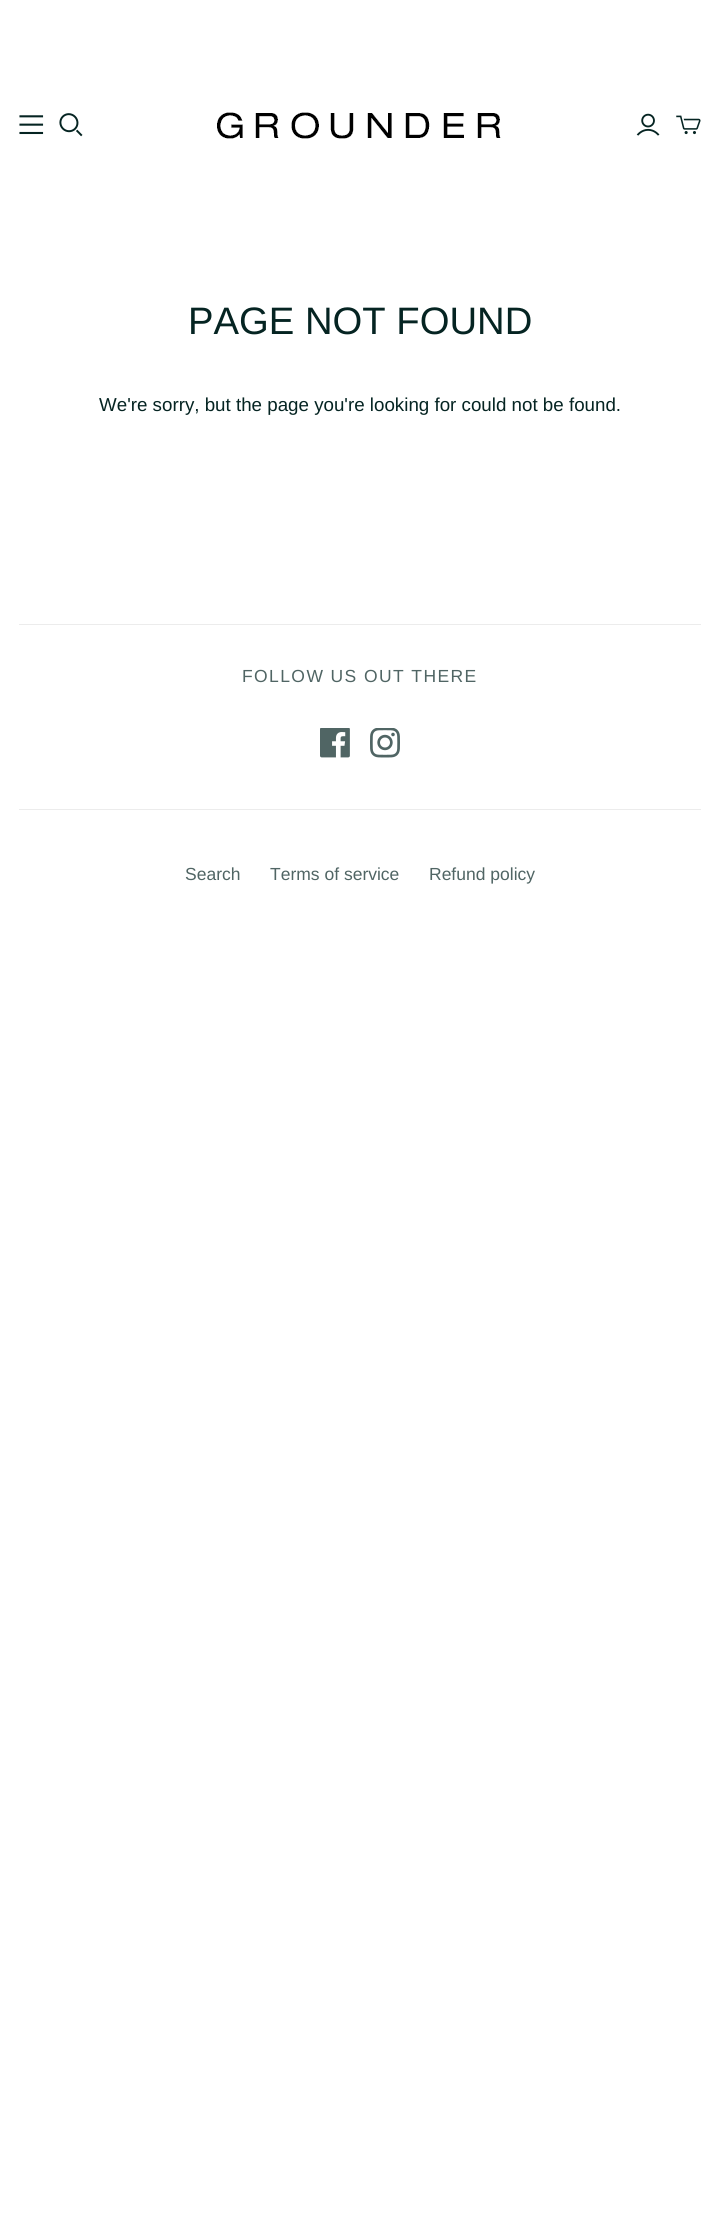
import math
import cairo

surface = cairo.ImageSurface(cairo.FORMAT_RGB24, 720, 2237)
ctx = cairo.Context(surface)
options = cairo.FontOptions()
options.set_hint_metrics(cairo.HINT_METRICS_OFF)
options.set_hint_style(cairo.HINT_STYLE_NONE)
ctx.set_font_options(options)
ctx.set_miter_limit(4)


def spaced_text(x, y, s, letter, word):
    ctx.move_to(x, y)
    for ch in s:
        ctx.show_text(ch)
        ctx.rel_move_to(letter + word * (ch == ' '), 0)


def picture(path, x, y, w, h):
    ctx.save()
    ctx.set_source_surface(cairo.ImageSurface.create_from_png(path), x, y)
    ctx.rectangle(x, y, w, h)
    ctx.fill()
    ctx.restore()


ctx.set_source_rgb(1, 1, 1)
ctx.paint()
picture("img1.png", 217, 112, 284, 27)
picture("img2.png", 19, 115, 25, 20)
picture("img3.png", 59, 113, 24, 24)
picture("img4.png", 636, 113, 24, 23)
picture("img5.png", 676, 115, 25, 20)
ctx.select_font_face("Liberation Sans")
ctx.set_font_size(38.25)
ctx.set_source_rgb(0.02, 0.141, 0.133)
ctx.move_to(188, 334)
ctx.show_text("PAGE NOT FOUND")
ctx.set_font_size(18.75)
ctx.move_to(99, 411)
ctx.show_text("We're sorry, but the page you're looking for could not be found.")
ctx.set_source_rgb(0.922, 0.922, 0.922)
ctx.rectangle(19, 624, 682, 1)
ctx.fill()
ctx.rectangle(19, 809, 682, 1)
ctx.fill()
ctx.set_font_size(17.5)
ctx.set_source_rgb(0.314, 0.396, 0.392)
spaced_text(242, 682, "FOLLOW US OUT THERE", 1.4, 0)
picture("img6.png", 320, 728, 30, 30)
picture("img7.png", 370, 728, 30, 30)
ctx.move_to(185, 880)
ctx.show_text("Search")
ctx.move_to(270, 880)
ctx.show_text("Terms of service")
ctx.move_to(429, 880)
ctx.show_text("Refund policy")
surface.write_to_png("page.png")
